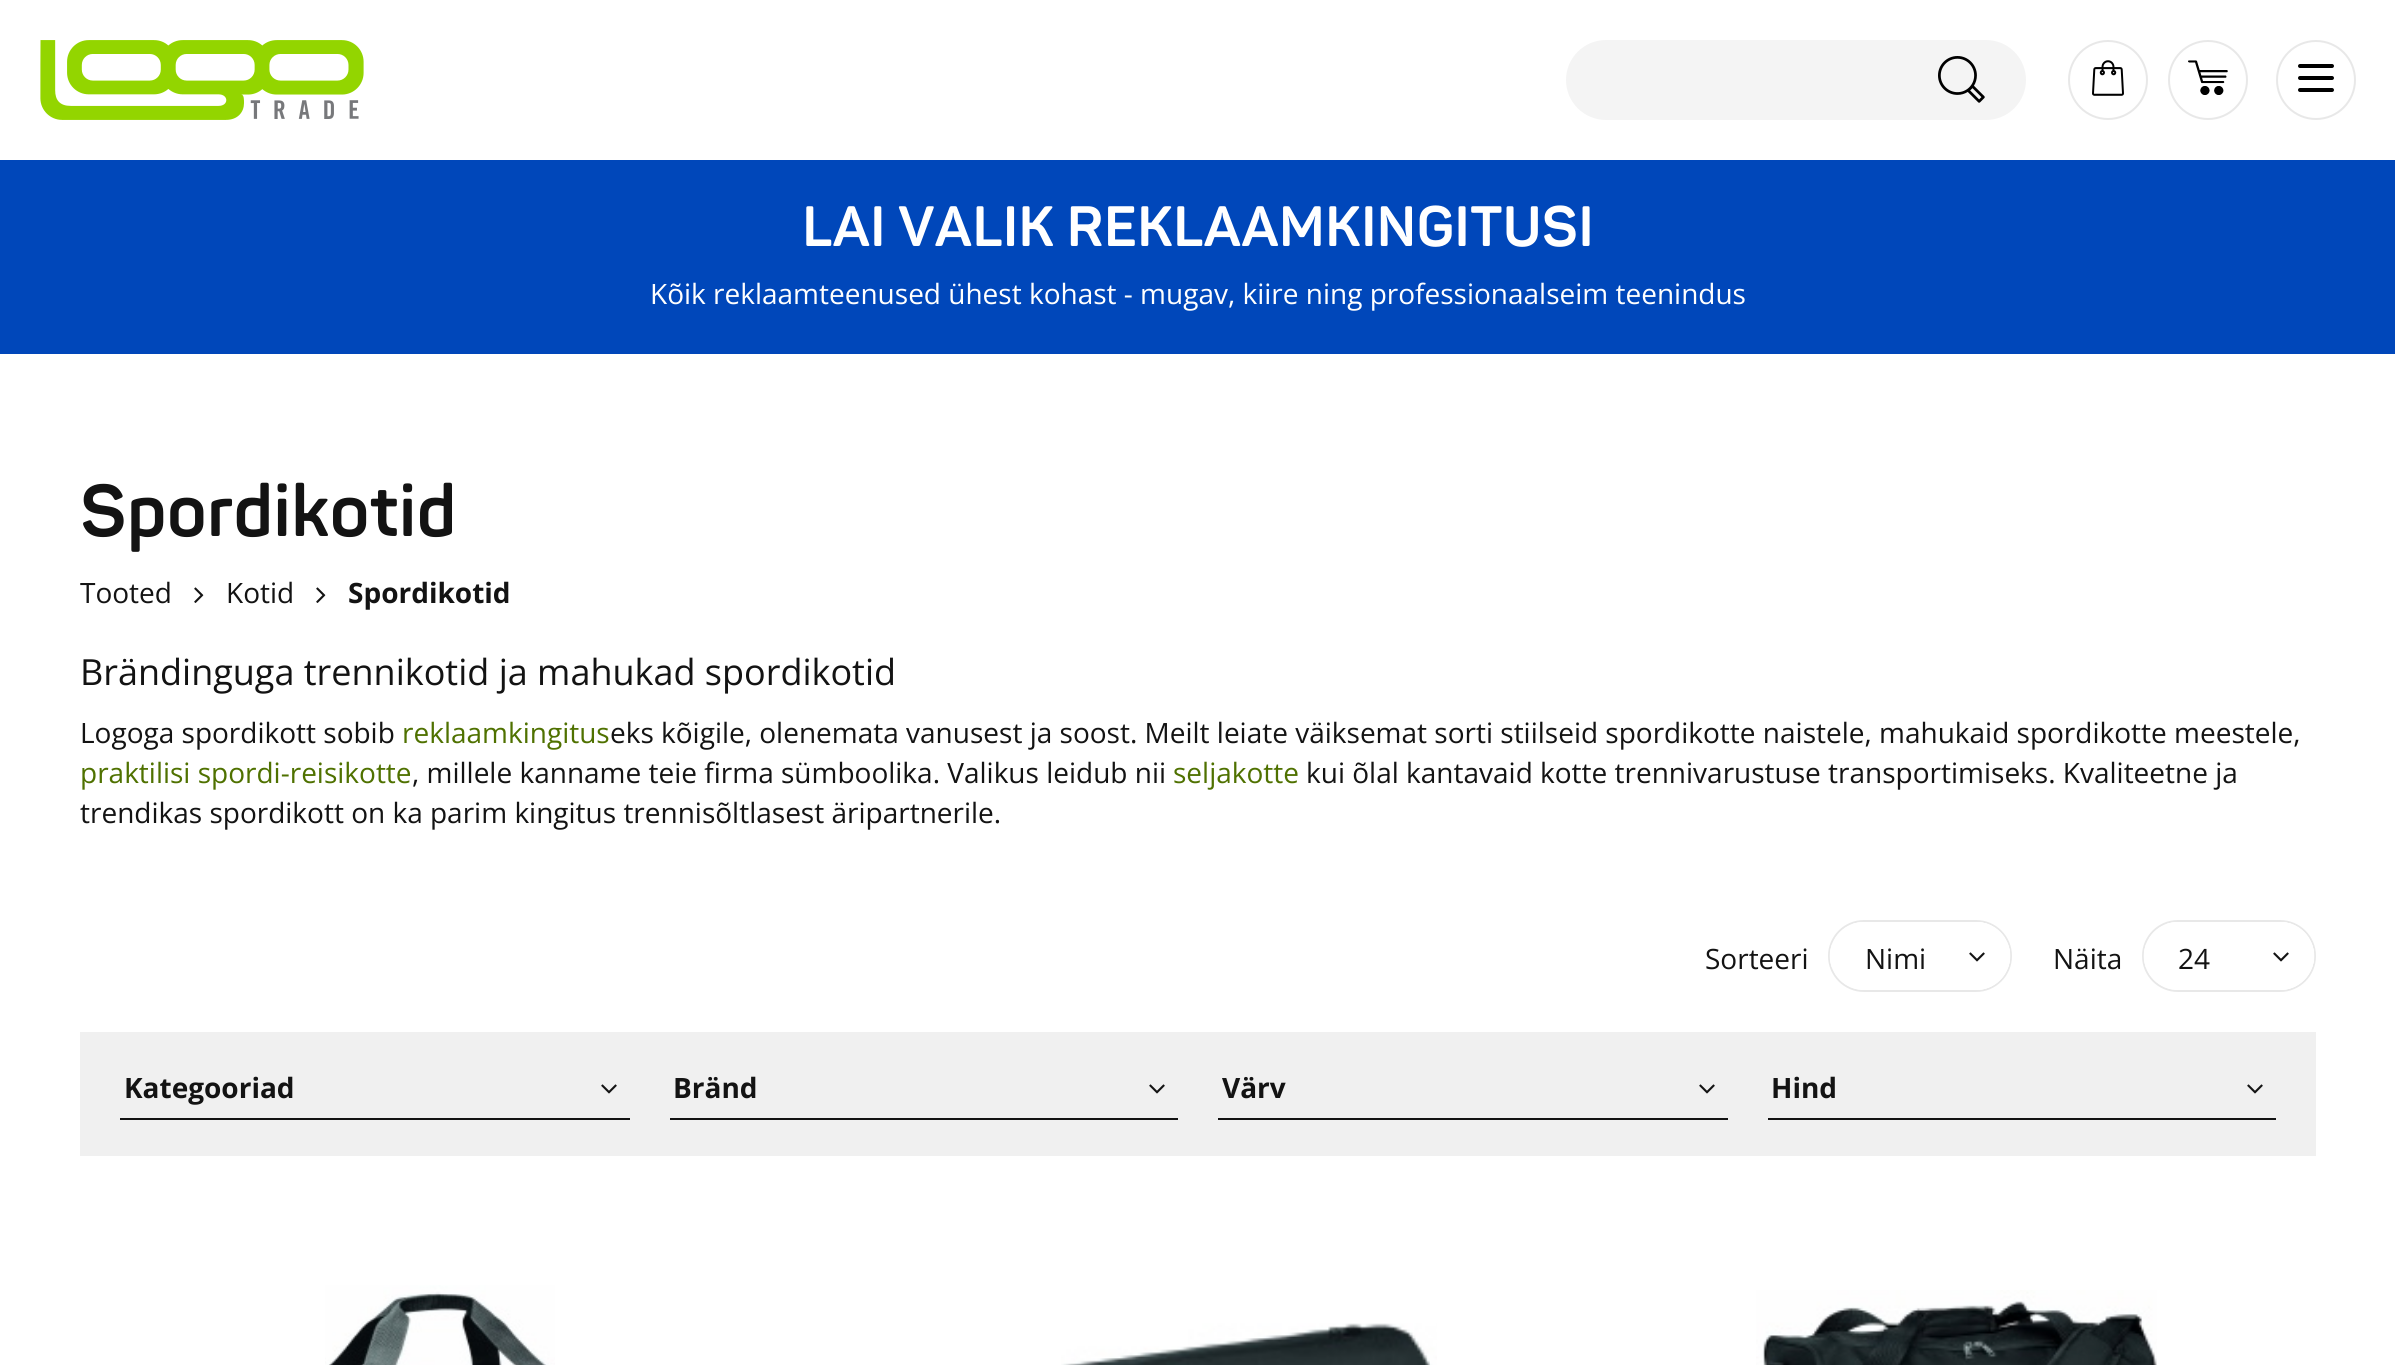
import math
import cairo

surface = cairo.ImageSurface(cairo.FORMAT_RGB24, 2395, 1365)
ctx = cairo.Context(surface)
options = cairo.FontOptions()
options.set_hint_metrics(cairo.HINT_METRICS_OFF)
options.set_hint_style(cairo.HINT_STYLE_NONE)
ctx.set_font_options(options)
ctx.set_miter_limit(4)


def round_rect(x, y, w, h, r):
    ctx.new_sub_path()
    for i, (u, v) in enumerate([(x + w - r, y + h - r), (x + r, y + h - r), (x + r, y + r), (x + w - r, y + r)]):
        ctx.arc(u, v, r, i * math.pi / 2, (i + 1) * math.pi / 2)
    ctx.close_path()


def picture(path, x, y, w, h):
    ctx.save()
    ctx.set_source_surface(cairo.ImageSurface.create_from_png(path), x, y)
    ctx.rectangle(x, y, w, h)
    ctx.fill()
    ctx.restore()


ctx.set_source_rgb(1, 1, 1)
ctx.paint()
picture("img1.png", 40, 40, 324, 80)
ctx.arc(2108, 80, 39, 0, 2 * math.pi)
ctx.set_source_rgb(0.91, 0.91, 0.91)
ctx.stroke()
picture("img2.png", 2092, 60, 32, 36)
ctx.arc(2208, 80, 39, 0, 2 * math.pi)
ctx.stroke()
picture("img3.png", 2188, 60, 40, 35)
ctx.arc(2316, 80, 39, 0, 2 * math.pi)
ctx.stroke()
picture("img4.png", 2298, 64, 36, 28)
ctx.set_source_rgb(0.957, 0.957, 0.957)
round_rect(1566, 40, 460, 80, 40)
ctx.fill()
picture("img5.png", 1938, 56, 47, 47)
ctx.set_source_rgb(0, 0.278, 0.729)
ctx.rectangle(0, 160, 2395, 194)
ctx.fill()
ctx.select_font_face("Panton", cairo.FONT_SLANT_NORMAL, cairo.FONT_WEIGHT_BOLD)
ctx.set_font_size(56)
ctx.set_source_rgb(1, 1, 1)
ctx.move_to(802, 246)
ctx.show_text("LAI VALIK REKLAAMKINGITUSI")
ctx.select_font_face("Open Sans")
ctx.set_font_size(28)
ctx.move_to(650, 304)
ctx.show_text("Kõik reklaamteenused ühest kohast - mugav, kiire ning professionaalseim teenindus")
ctx.select_font_face("Panton", cairo.FONT_SLANT_NORMAL, cairo.FONT_WEIGHT_BOLD)
ctx.set_font_size(72)
ctx.set_source_rgb(0.078, 0.078, 0.078)
ctx.move_to(80, 536)
ctx.show_text("Spordikotid")
ctx.select_font_face("Open Sans")
ctx.set_font_size(28)
ctx.move_to(80, 603)
ctx.show_text("Tooted")
picture("img6.png", 194, 587, 10, 16)
ctx.move_to(226, 603)
ctx.show_text("Kotid")
picture("img6.png", 316, 587, 10, 16)
ctx.select_font_face("Open Sans", cairo.FONT_SLANT_NORMAL, cairo.FONT_WEIGHT_BOLD)
ctx.move_to(348, 603)
ctx.show_text("Spordikotid")
ctx.select_font_face("Open Sans")
ctx.set_font_size(36)
ctx.move_to(80, 685)
ctx.show_text("Brändinguga trennikotid ja mahukad spordikotid")
ctx.set_font_size(28)
ctx.move_to(80, 743)
ctx.show_text("Logoga spordikott sobib")
ctx.set_source_rgb(0.31, 0.443, 0)
ctx.move_to(402, 743)
ctx.show_text("reklaamkingitus")
ctx.set_source_rgb(0.078, 0.078, 0.078)
ctx.move_to(610, 743)
ctx.show_text("eks kõigile, olenemata vanusest ja soost. Meilt leiate väiksemat sorti stiilseid spordikotte naistele, mahukaid spordikotte meestele,")
ctx.set_source_rgb(0.31, 0.443, 0)
ctx.move_to(80, 783)
ctx.show_text("praktilisi spordi-reisikotte")
ctx.set_source_rgb(0.078, 0.078, 0.078)
ctx.move_to(412, 783)
ctx.show_text(", millele kanname teie firma sümboolika. Valikus leidub nii")
ctx.set_source_rgb(0.31, 0.443, 0)
ctx.move_to(1173, 783)
ctx.show_text("seljakotte")
ctx.set_source_rgb(0.078, 0.078, 0.078)
ctx.move_to(1306, 783)
ctx.show_text("kui õlal kantavaid kotte trennivarustuse transportimiseks. Kvaliteetne ja")
ctx.move_to(80, 823)
ctx.show_text("trendikas spordikott on ka parim kingitus trennisõltlasest äripartnerile.")
ctx.move_to(1705, 969)
ctx.show_text("Sorteeri")
round_rect(1829, 921, 182, 70, 35)
ctx.set_source_rgb(0.91, 0.91, 0.91)
ctx.stroke()
ctx.set_source_rgb(1, 1, 1)
round_rect(1830, 922, 180, 68, 34)
ctx.fill()
ctx.set_fill_rule(cairo.FILL_RULE_EVEN_ODD)
ctx.new_path()
ctx.move_to(1864, 922)
ctx.curve_to(1860, 922, 1856, 923, 1852, 924)
ctx.line_to(1988, 924)
ctx.curve_to(1984, 923, 1980, 922, 1976, 922)
ctx.close_path()
ctx.move_to(2008, 944)
ctx.curve_to(2011, 952, 2011, 960, 2008, 968)
ctx.close_path()
ctx.move_to(1832, 968)
ctx.curve_to(1829, 960, 1829, 952, 1832, 944)
ctx.close_path()
ctx.fill()
ctx.set_source_rgb(0.078, 0.078, 0.078)
ctx.move_to(1865, 969)
ctx.show_text("Nimi")
ctx.set_source_rgb(1, 1, 1)
ctx.new_path()
ctx.move_to(1950, 922)
ctx.line_to(1976, 922)
ctx.curve_to(1995, 922, 2010, 937, 2010, 956)
ctx.curve_to(2010, 975, 1995, 990, 1976, 990)
ctx.line_to(1950, 990)
ctx.close_path()
ctx.fill()
picture("img7.png", 1969, 952, 16, 10)
ctx.set_source_rgb(0.078, 0.078, 0.078)
ctx.move_to(2053, 969)
ctx.show_text("Näita")
round_rect(2143, 921, 172, 70, 35)
ctx.set_source_rgb(0.91, 0.91, 0.91)
ctx.stroke()
ctx.set_source_rgb(1, 1, 1)
round_rect(2144, 922, 170, 68, 34)
ctx.fill()
ctx.new_path()
ctx.move_to(2178, 922)
ctx.curve_to(2174, 922, 2170, 923, 2166, 924)
ctx.line_to(2292, 924)
ctx.curve_to(2288, 923, 2284, 922, 2280, 922)
ctx.close_path()
ctx.move_to(2312, 944)
ctx.curve_to(2315, 952, 2315, 960, 2312, 968)
ctx.close_path()
ctx.move_to(2146, 968)
ctx.curve_to(2143, 960, 2143, 952, 2146, 944)
ctx.close_path()
ctx.fill()
ctx.set_source_rgb(0.078, 0.078, 0.078)
ctx.move_to(2178, 969)
ctx.show_text("24")
ctx.set_source_rgb(1, 1, 1)
ctx.new_path()
ctx.move_to(2254, 922)
ctx.line_to(2280, 922)
ctx.curve_to(2299, 922, 2314, 937, 2314, 956)
ctx.curve_to(2314, 975, 2299, 990, 2280, 990)
ctx.line_to(2254, 990)
ctx.close_path()
ctx.fill()
picture("img7.png", 2273, 952, 16, 10)
ctx.set_source_rgb(0.941, 0.941, 0.941)
ctx.rectangle(80, 1032, 2236, 124)
ctx.fill()
ctx.set_source_rgb(0.078, 0.078, 0.078)
ctx.rectangle(120, 1118, 510, 2)
ctx.fill()
ctx.select_font_face("Open Sans", cairo.FONT_SLANT_NORMAL, cairo.FONT_WEIGHT_BOLD)
ctx.move_to(124, 1098)
ctx.show_text("Kategooriad")
picture("img8.png", 601, 1084, 16, 10)
ctx.rectangle(670, 1118, 508, 2)
ctx.fill()
ctx.move_to(673, 1098)
ctx.show_text("Bränd")
picture("img8.png", 1149, 1084, 16, 10)
ctx.rectangle(1218, 1118, 510, 2)
ctx.fill()
ctx.move_to(1222, 1098)
ctx.show_text("Värv")
picture("img8.png", 1699, 1084, 16, 10)
ctx.rectangle(1768, 1118, 508, 2)
ctx.fill()
ctx.move_to(1771, 1098)
ctx.show_text("Hind")
picture("img8.png", 2247, 1084, 16, 10)
picture("img9.png", 325, 1285, 230, 80)
picture("img10.png", 1061, 1323, 376, 42)
picture("img11.png", 1756, 1290, 401, 75)
surface.write_to_png("page.png")
